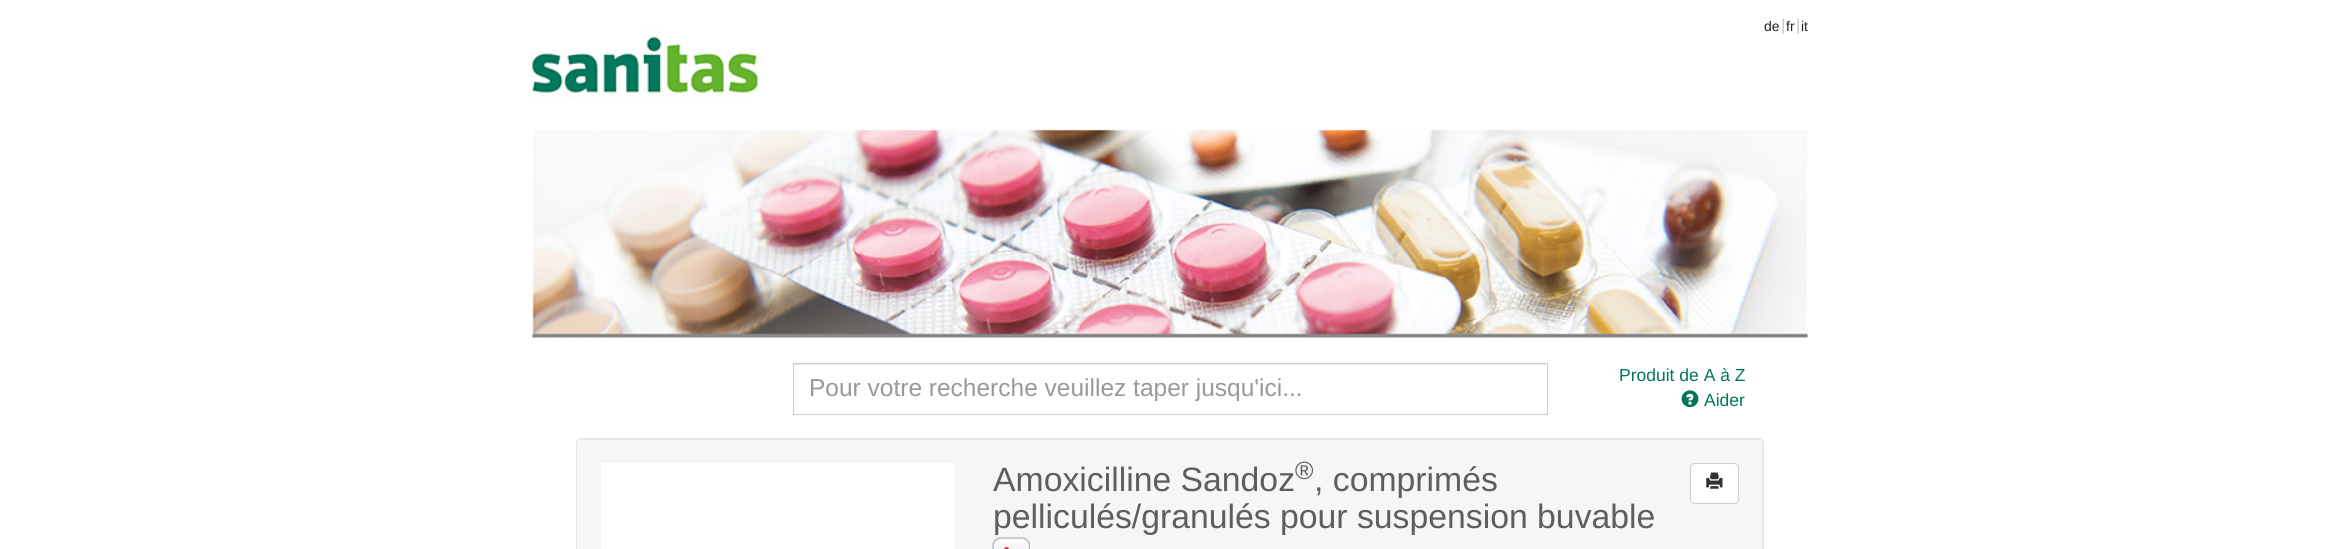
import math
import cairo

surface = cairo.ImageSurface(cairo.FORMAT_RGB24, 2339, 549)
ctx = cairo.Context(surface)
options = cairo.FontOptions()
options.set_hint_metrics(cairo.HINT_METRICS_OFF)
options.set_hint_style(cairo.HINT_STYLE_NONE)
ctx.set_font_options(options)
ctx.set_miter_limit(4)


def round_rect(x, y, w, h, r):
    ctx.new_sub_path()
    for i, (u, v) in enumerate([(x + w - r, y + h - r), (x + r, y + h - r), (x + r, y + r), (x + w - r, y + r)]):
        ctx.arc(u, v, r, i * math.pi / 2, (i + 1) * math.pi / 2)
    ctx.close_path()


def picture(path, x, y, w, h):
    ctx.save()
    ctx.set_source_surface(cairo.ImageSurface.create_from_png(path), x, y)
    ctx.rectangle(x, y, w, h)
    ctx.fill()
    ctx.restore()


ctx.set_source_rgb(1, 1, 1)
ctx.paint()
picture("img1.png", 532, 30, 1276, 308)
ctx.select_font_face("Liberation Sans")
ctx.set_font_size(14)
ctx.set_source_rgb(0.133, 0.133, 0.133)
ctx.move_to(1764, 31)
ctx.show_text("de")
picture("img2.png", 1782, 18, 2, 16)
ctx.move_to(1786, 31)
ctx.show_text("fr")
picture("img2.png", 1797, 18, 2, 16)
ctx.move_to(1801, 31)
ctx.show_text("it")
ctx.set_source_rgb(0.925, 0.925, 0.925)
ctx.rectangle(794, 364, 752, 1)
ctx.fill()
ctx.rectangle(793.5, 363.5, 754, 51)
ctx.set_source_rgb(0.8, 0.8, 0.8)
ctx.set_line_width(1)
ctx.stroke()
ctx.set_font_size(24.5)
ctx.set_source_rgb(0.6, 0.6, 0.6)
ctx.move_to(809, 396)
ctx.show_text("Pour votre recherche veuillez taper jusqu'ici...")
ctx.set_font_size(17.5)
ctx.set_source_rgb(0, 0.463, 0.353)
ctx.move_to(1619, 381)
ctx.show_text("Produit de A à Z")
picture("img3.png", 1681, 390, 18, 18)
ctx.move_to(1704, 406)
ctx.show_text("Aider")
ctx.set_source_rgb(0.961, 0.961, 0.961)
round_rect(576, 438, 1188, 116, 5)
ctx.fill()
ctx.set_source_rgb(0.914, 0.914, 0.914)
ctx.new_path()
ctx.move_to(581, 440)
ctx.line_to(1759, 440)
ctx.curve_to(1761, 440, 1762, 442, 1762, 444)
ctx.line_to(1762, 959)
ctx.curve_to(1763, 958, 1763, 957, 1763, 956)
ctx.line_to(1763, 443)
ctx.curve_to(1763, 441, 1761, 439, 1759, 439)
ctx.line_to(582, 439)
ctx.curve_to(580, 439, 578, 441, 578, 443)
ctx.line_to(578, 444)
ctx.curve_to(578, 442, 579, 440, 581, 440)
ctx.close_path()
ctx.fill()
round_rect(576.5, 438.5, 1187, 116, 4.5)
ctx.set_source_rgb(0.89, 0.89, 0.89)
ctx.stroke()
ctx.set_source_rgb(1, 1, 1)
ctx.rectangle(601, 463, 354, 86)
ctx.fill()
ctx.set_font_size(33.75)
ctx.set_source_rgb(0.369, 0.369, 0.369)
ctx.move_to(993, 491)
ctx.show_text("Amoxicilline Sandoz")
ctx.set_font_size(25)
ctx.move_to(1295, 479)
ctx.show_text("®")
ctx.set_font_size(33.75)
ctx.move_to(1314, 491)
ctx.show_text(", comprimés")
ctx.move_to(993, 528)
ctx.show_text("pelliculés/granulés pour suspension buvable")
picture("img4.png", 992, 537, 38, 12)
ctx.set_source_rgb(1, 1, 1)
round_rect(1690.5, 463.5, 48, 40, 4.5)
ctx.fill_preserve()
ctx.set_source_rgb(0.8, 0.8, 0.8)
ctx.stroke()
picture("img5.png", 1706, 472, 17, 17)
surface.write_to_png("page.png")
